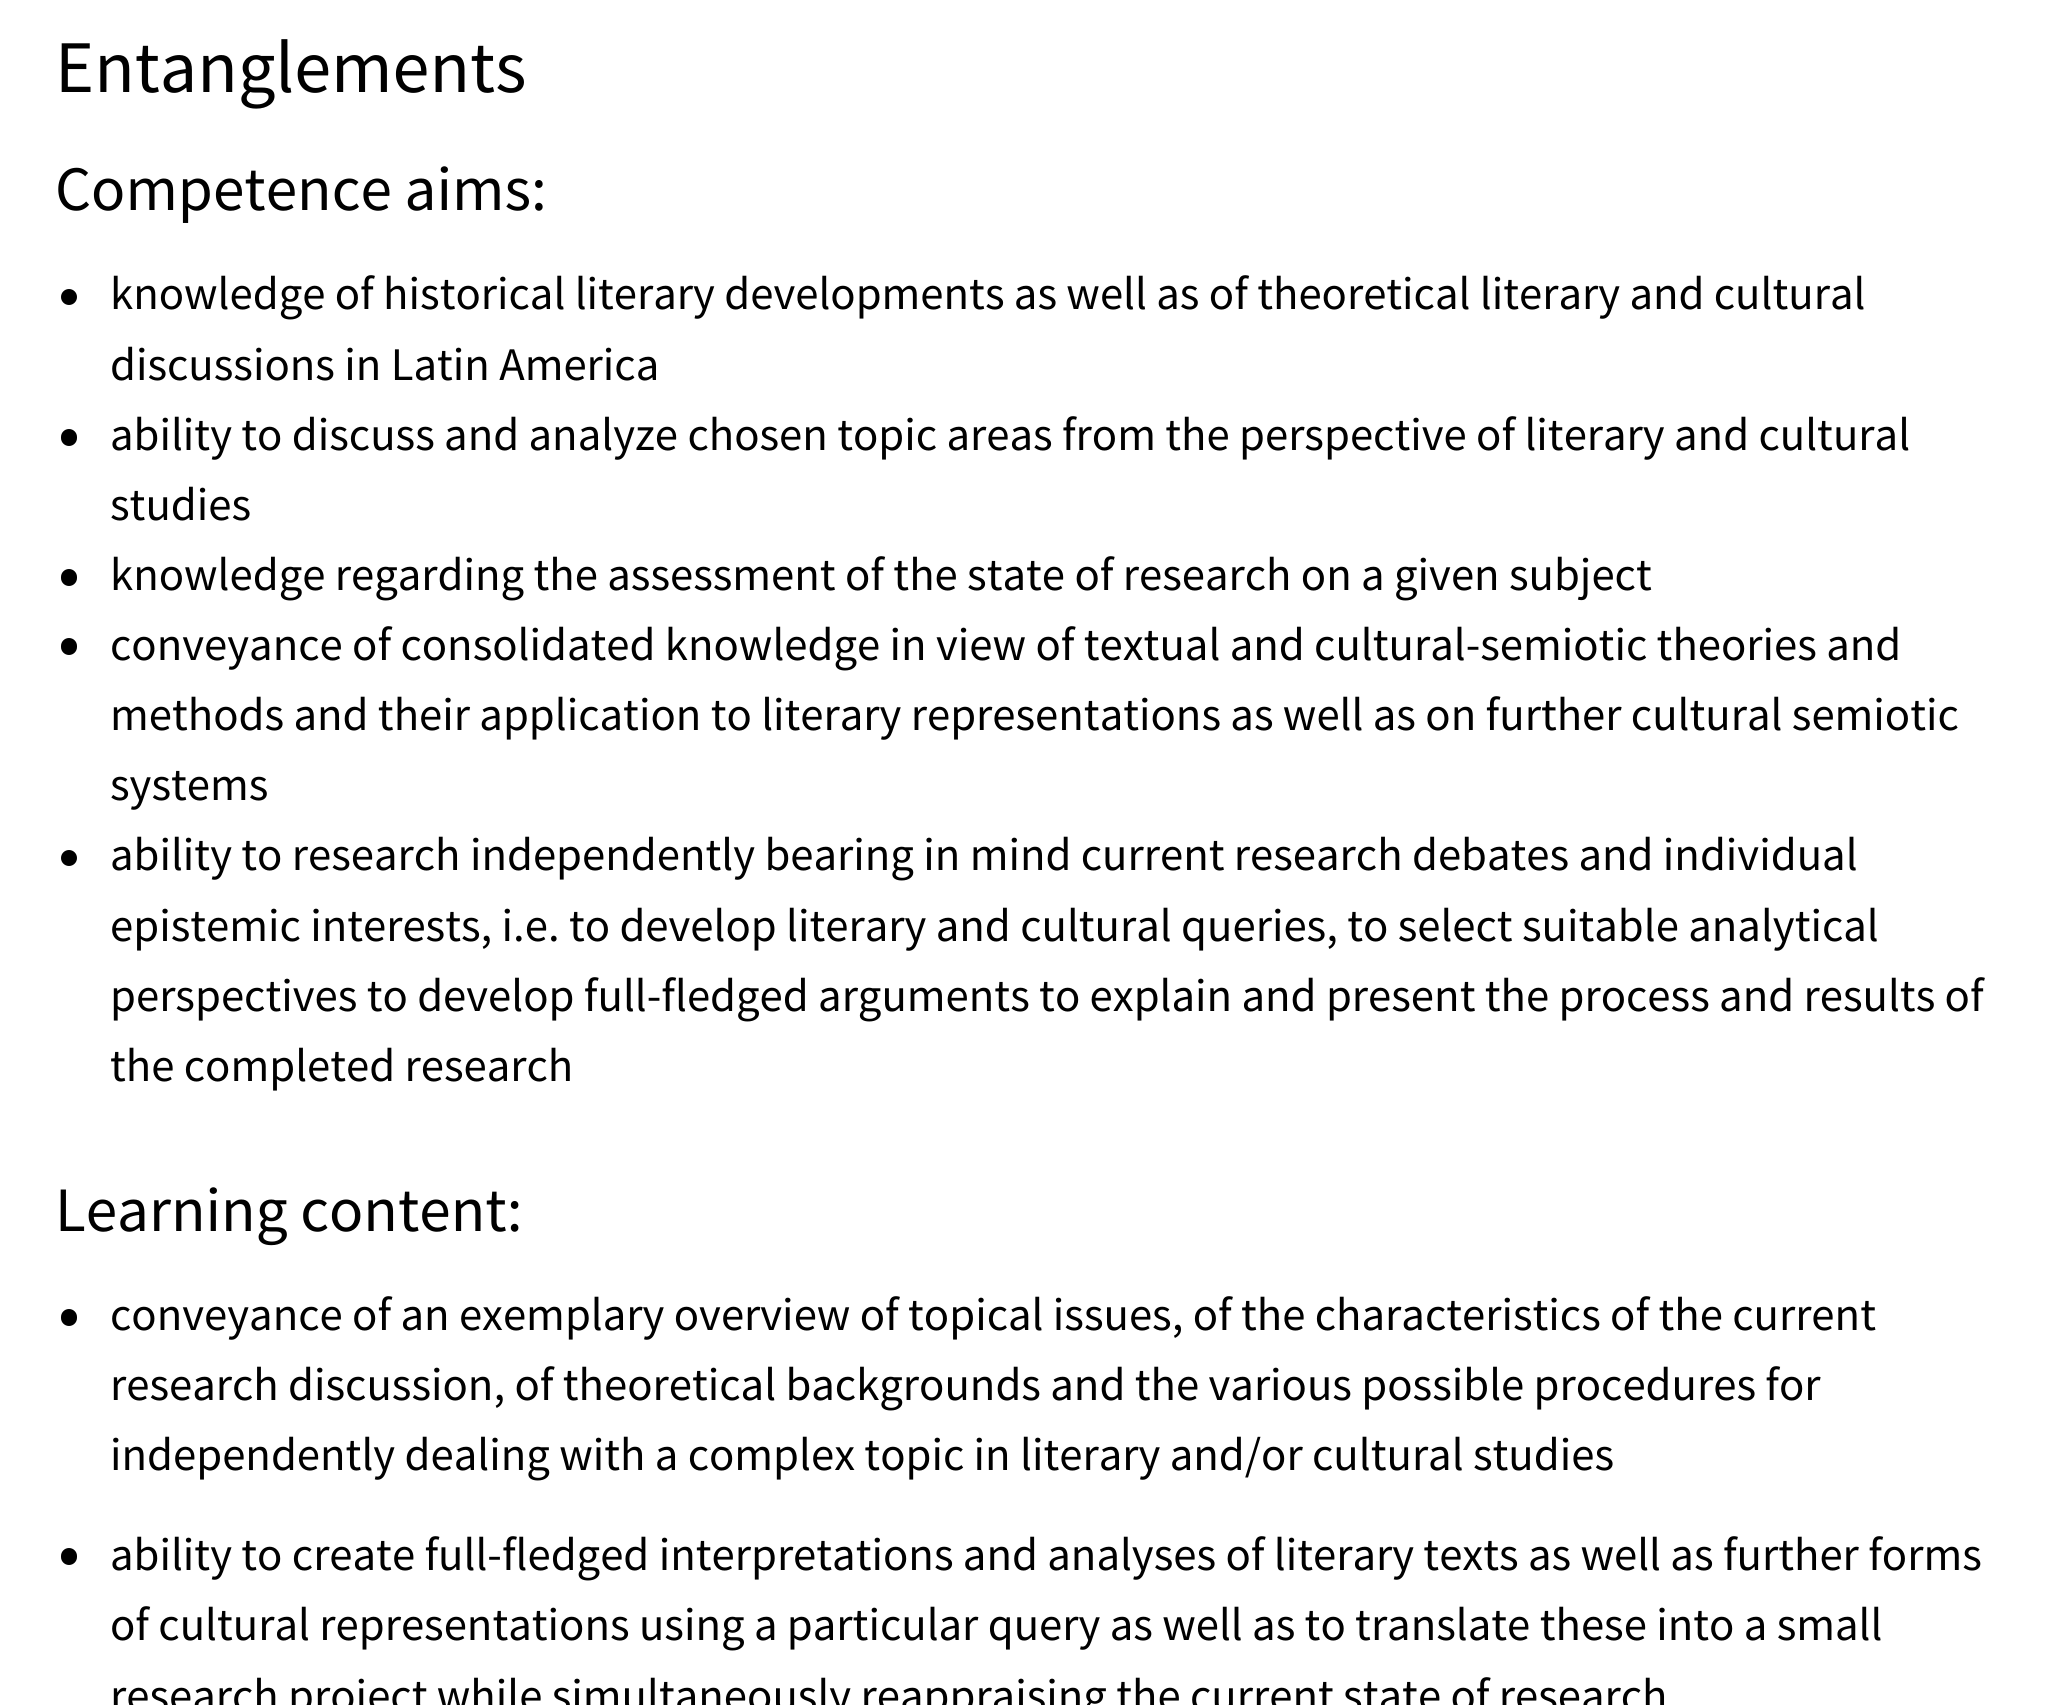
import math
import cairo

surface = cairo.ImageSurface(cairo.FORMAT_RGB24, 2052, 1705)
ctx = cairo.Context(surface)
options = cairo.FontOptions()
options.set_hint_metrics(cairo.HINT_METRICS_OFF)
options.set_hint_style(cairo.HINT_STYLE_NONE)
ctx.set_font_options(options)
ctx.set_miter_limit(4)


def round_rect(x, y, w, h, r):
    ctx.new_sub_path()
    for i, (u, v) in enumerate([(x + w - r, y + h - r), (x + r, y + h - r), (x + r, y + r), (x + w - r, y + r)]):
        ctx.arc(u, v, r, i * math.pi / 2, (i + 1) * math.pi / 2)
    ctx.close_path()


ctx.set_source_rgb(1, 1, 1)
ctx.paint()
ctx.select_font_face("Source Sans Pro")
ctx.set_font_size(74.25)
ctx.set_source_rgb(0, 0, 0)
ctx.move_to(55, 92)
ctx.show_text("Entanglements")
ctx.set_font_size(63.25)
ctx.move_to(55, 210)
ctx.show_text("Competence aims:")
ctx.new_path()
ctx.arc(69, 297, 8, 0, 2 * math.pi)
ctx.fill()
ctx.set_font_size(46.75)
ctx.move_to(110, 309)
ctx.show_text("knowledge of historical literary developments as well as of theoretical literary and cultural")
ctx.move_to(110, 380)
ctx.show_text("discussions in Latin America")
round_rect(61, 429, 16, 17, 8)
ctx.fill()
ctx.move_to(110, 450)
ctx.show_text("ability to discuss and analyze chosen topic areas from the perspective of literary and cultural")
ctx.move_to(110, 520)
ctx.show_text("studies")
round_rect(61, 569, 16, 17, 8)
ctx.fill()
ctx.move_to(110, 590)
ctx.show_text("knowledge regarding the assessment of the state of research on a given subject")
round_rect(61, 638, 16, 17, 8)
ctx.fill()
ctx.move_to(110, 660)
ctx.show_text("conveyance of consolidated knowledge in view of textual and cultural-semiotic theories and")
ctx.move_to(110, 730)
ctx.show_text("methods and their application to literary representations as well as on further cultural semiotic")
ctx.move_to(110, 800)
ctx.show_text("systems")
ctx.new_path()
ctx.arc(69, 858, 8, 0, 2 * math.pi)
ctx.fill()
ctx.move_to(110, 870)
ctx.show_text("ability to research independently bearing in mind current research debates and individual")
ctx.move_to(110, 941)
ctx.show_text("epistemic interests, i.e. to develop literary and cultural queries, to select suitable analytical")
ctx.move_to(110, 1011)
ctx.show_text("perspectives to develop full-fledged arguments to explain and present the process and results of")
ctx.move_to(110, 1081)
ctx.show_text("the completed research")
ctx.set_font_size(63.25)
ctx.move_to(55, 1231)
ctx.show_text("Learning content:")
round_rect(61, 1309, 16, 17, 8)
ctx.fill()
ctx.set_font_size(46.75)
ctx.move_to(110, 1330)
ctx.show_text("conveyance of an exemplary overview of topical issues, of the characteristics of the current")
ctx.move_to(110, 1400)
ctx.show_text("research discussion, of theoretical backgrounds and the various possible procedures for")
ctx.move_to(110, 1470)
ctx.show_text("independently dealing with a complex topic in literary and/or cultural studies")
round_rect(61, 1548, 16, 17, 8)
ctx.fill()
ctx.move_to(110, 1570)
ctx.show_text("ability to create full-fledged interpretations and analyses of literary texts as well as further forms")
ctx.move_to(110, 1640)
ctx.show_text("of cultural representations using a particular query as well as to translate these into a small")
ctx.move_to(110, 1711)
ctx.show_text("research project while simultaneously reappraising the current state of research")
surface.write_to_png("page.png")
